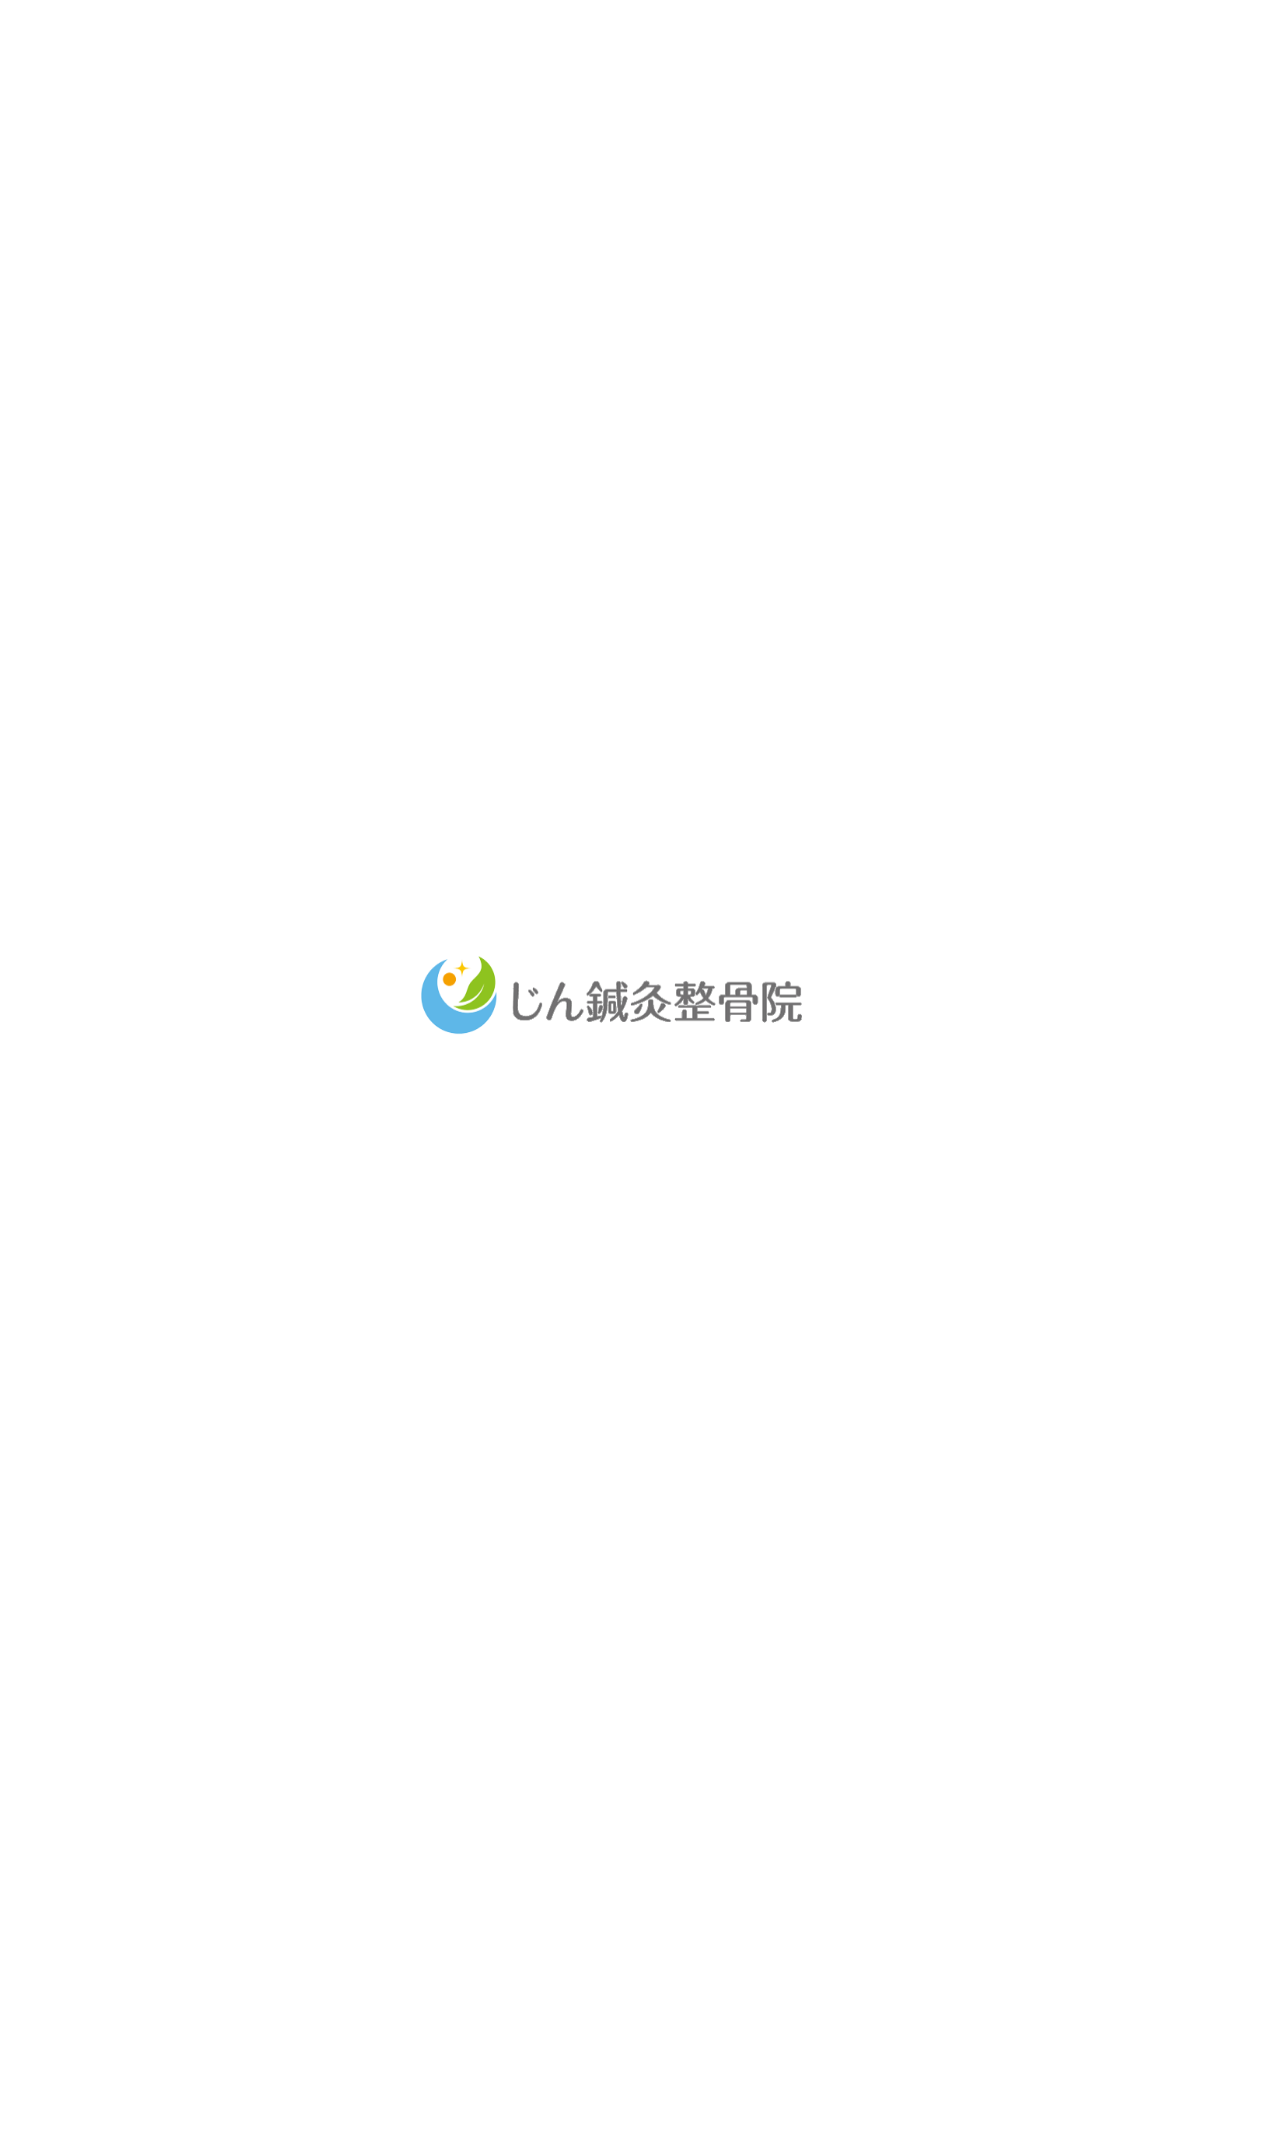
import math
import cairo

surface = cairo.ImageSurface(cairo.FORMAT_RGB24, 1266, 2146)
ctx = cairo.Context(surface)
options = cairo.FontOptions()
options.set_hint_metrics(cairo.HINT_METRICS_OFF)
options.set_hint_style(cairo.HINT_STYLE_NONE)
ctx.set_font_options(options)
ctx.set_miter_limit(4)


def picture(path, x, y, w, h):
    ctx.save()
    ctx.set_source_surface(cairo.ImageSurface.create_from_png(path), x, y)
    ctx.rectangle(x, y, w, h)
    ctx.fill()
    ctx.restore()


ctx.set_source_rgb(1, 1, 1)
ctx.paint()
picture("img1.png", 421, 956, 381, 79)
surface.write_to_png("page.png")
